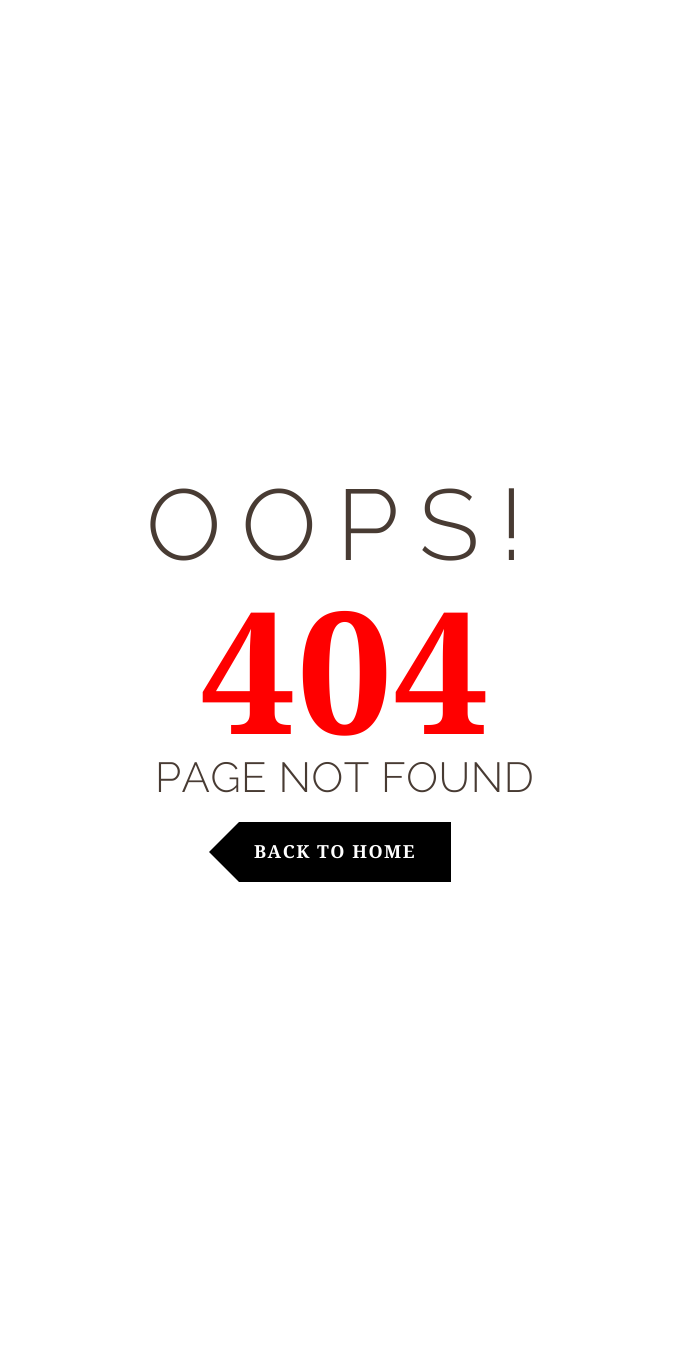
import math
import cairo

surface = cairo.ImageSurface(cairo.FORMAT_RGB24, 690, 1348)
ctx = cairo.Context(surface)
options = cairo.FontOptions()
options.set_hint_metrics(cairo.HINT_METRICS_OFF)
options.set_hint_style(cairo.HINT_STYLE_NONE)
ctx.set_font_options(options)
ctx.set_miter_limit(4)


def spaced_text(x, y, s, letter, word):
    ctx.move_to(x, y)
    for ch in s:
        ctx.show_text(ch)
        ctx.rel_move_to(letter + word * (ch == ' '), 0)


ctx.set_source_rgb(1, 1, 1)
ctx.paint()
ctx.select_font_face("Raleway Light")
ctx.set_font_size(100)
ctx.set_source_rgb(0.282, 0.231, 0.2)
spaced_text(146, 560, "OOPS!", 20, 0)
ctx.select_font_face("Noto Serif", cairo.FONT_SLANT_NORMAL, cairo.FONT_WEIGHT_BOLD)
ctx.set_font_size(170)
ctx.set_source_rgb(1, 0, 0)
spaced_text(200, 734, "404", 0.5, 0)
ctx.select_font_face("Raleway Light")
ctx.set_font_size(42)
ctx.set_source_rgb(0.282, 0.231, 0.2)
spaced_text(155, 792, "PAGE NOT FOUND", 0.5, 0)
ctx.set_source_rgb(0, 0, 0)
ctx.rectangle(239, 822, 212, 60)
ctx.fill()
ctx.new_path()
ctx.move_to(239, 822)
ctx.line_to(239, 882)
ctx.line_to(209, 852)
ctx.close_path()
ctx.fill()
ctx.select_font_face("Noto Serif", cairo.FONT_SLANT_NORMAL, cairo.FONT_WEIGHT_BOLD)
ctx.set_font_size(18)
ctx.set_source_rgb(1, 1, 1)
spaced_text(254, 858, "BACK TO HOME", 1.5, 0)
surface.write_to_png("page.png")
